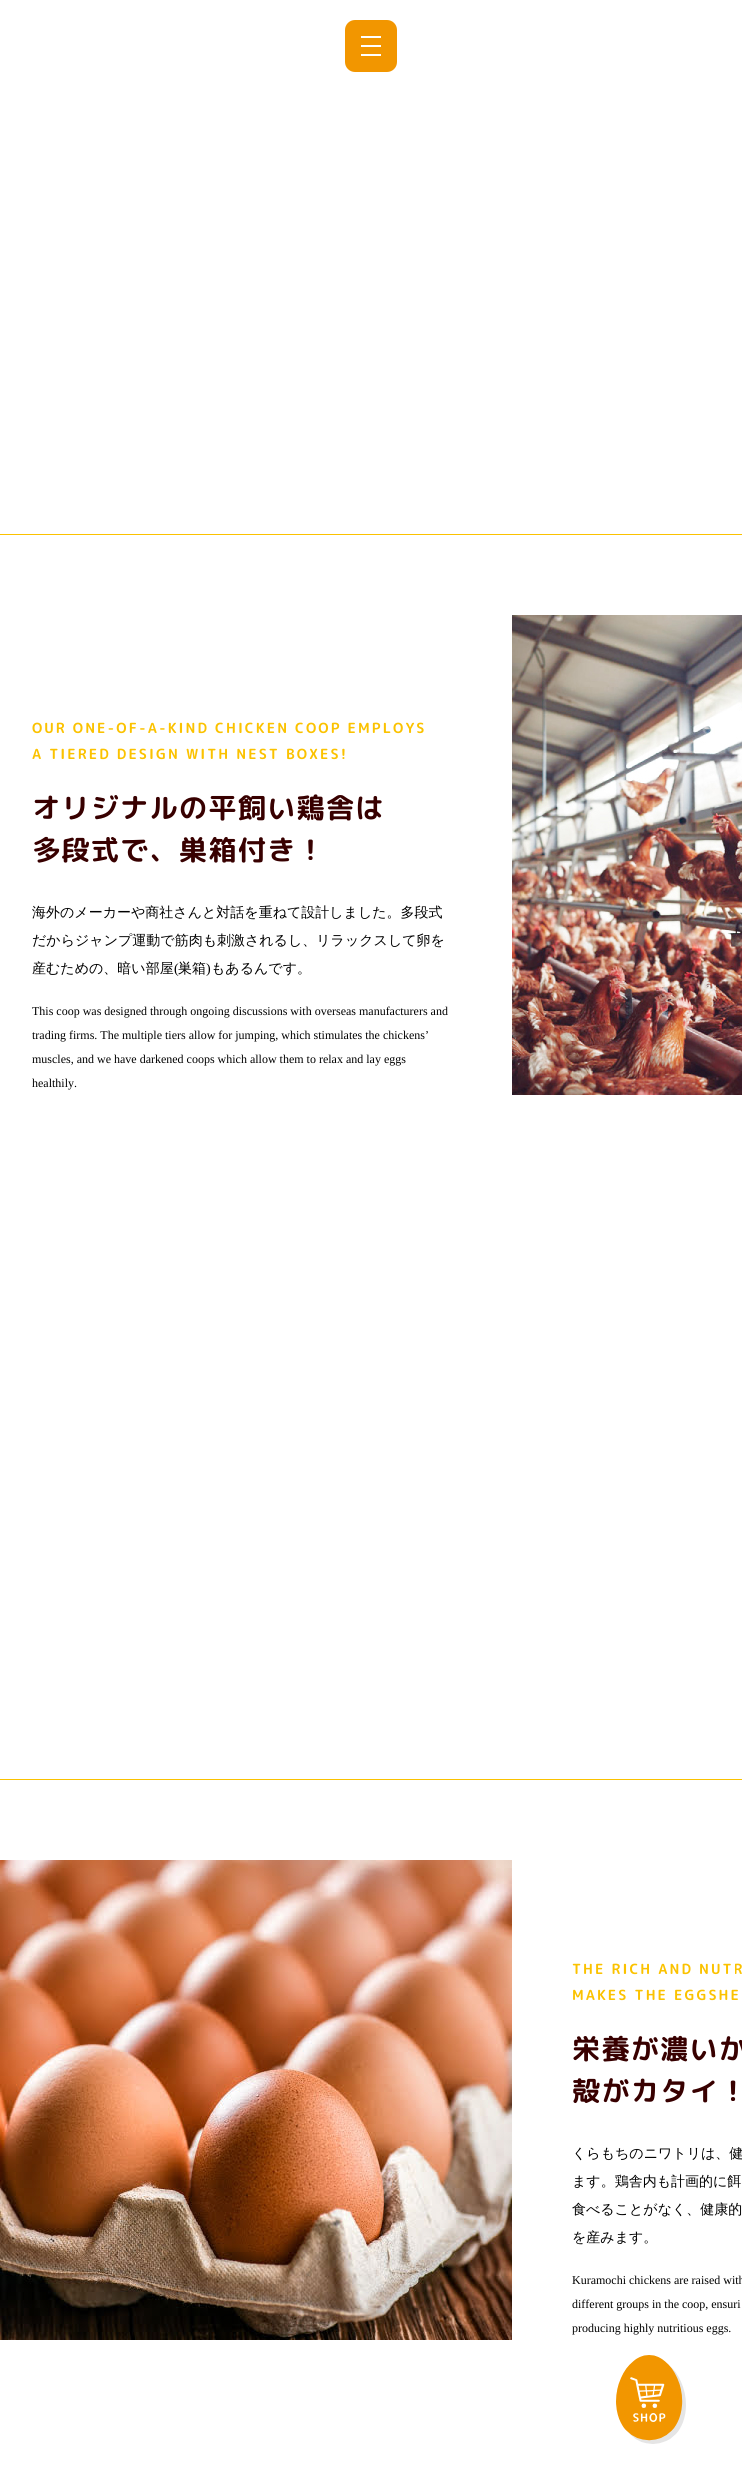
import math
import cairo

surface = cairo.ImageSurface(cairo.FORMAT_RGB24, 742, 2483)
ctx = cairo.Context(surface)
options = cairo.FontOptions()
options.set_hint_metrics(cairo.HINT_METRICS_OFF)
options.set_hint_style(cairo.HINT_STYLE_NONE)
ctx.set_font_options(options)
ctx.set_miter_limit(4)


def spaced_text(x, y, s, letter, word):
    ctx.move_to(x, y)
    for ch in s:
        ctx.show_text(ch)
        ctx.rel_move_to(letter + word * (ch == ' '), 0)


def round_rect(x, y, w, h, r):
    ctx.new_sub_path()
    for i, (u, v) in enumerate([(x + w - r, y + h - r), (x + r, y + h - r), (x + r, y + r), (x + w - r, y + r)]):
        ctx.arc(u, v, r, i * math.pi / 2, (i + 1) * math.pi / 2)
    ctx.close_path()


def picture(path, x, y, w, h):
    ctx.save()
    ctx.set_source_surface(cairo.ImageSurface.create_from_png(path), x, y)
    ctx.rectangle(x, y, w, h)
    ctx.fill()
    ctx.restore()


ctx.set_source_rgb(1, 1, 1)
ctx.paint()
ctx.set_source_rgb(0.949, 0.588, 0)
round_rect(345, 20, 52, 52, 10)
ctx.fill()
ctx.set_source_rgb(1, 1, 1)
ctx.rectangle(361, 36, 20, 2)
ctx.fill()
ctx.rectangle(361, 45, 20, 2)
ctx.fill()
ctx.rectangle(361, 54, 20, 2)
ctx.fill()
ctx.set_source_rgb(0.984, 0.761, 0)
ctx.rectangle(0, 534, 742, 1)
ctx.fill()
ctx.rectangle(0, 1779, 742, 1)
ctx.fill()
ctx.select_font_face("Rounded Mplus 1c Bold", cairo.FONT_SLANT_NORMAL, cairo.FONT_WEIGHT_BOLD)
ctx.set_font_size(14)
spaced_text(32, 733, "OUR ONE-OF-A-KIND CHICKEN COOP EMPLOYS", 2.05, 0)
spaced_text(32, 759, "A TIERED DESIGN WITH NEST BOXES!", 2.05, 0)
ctx.set_font_size(28)
ctx.set_source_rgb(0.22, 0, 0)
spaced_text(32, 818, "オリジナルの平飼い鶏舎は", 1.4, 0)
spaced_text(32, 860, "多段式で、巣箱付き！", 1.4, 0)
ctx.select_font_face("WenQuanYi Zen Hei Medium")
ctx.set_font_size(14)
ctx.set_source_rgb(0, 0, 0)
ctx.move_to(32, 917)
ctx.show_text("海外のメーカーや商社さんと対話を重ねて設計しました。多段式")
ctx.move_to(32, 945)
ctx.show_text("だからジャンプ運動で筋肉も刺激されるし、リラックスして卵を")
ctx.move_to(32, 973)
ctx.show_text("産むための、暗い部屋")
ctx.select_font_face("Liberation Serif")
ctx.move_to(174, 973)
ctx.show_text("(")
ctx.select_font_face("WenQuanYi Zen Hei Medium")
ctx.move_to(178, 973)
ctx.show_text("巣箱")
ctx.select_font_face("Liberation Serif")
ctx.move_to(206, 973)
ctx.show_text(")")
ctx.select_font_face("WenQuanYi Zen Hei Medium")
ctx.move_to(211, 973)
ctx.show_text("もあるんです。")
ctx.select_font_face("Liberation Serif")
ctx.set_font_size(12)
ctx.move_to(32, 1015)
ctx.show_text("This coop was designed through ongoing discussions with overseas manufacturers and")
ctx.move_to(32, 1039)
ctx.show_text("trading firms. The multiple tiers allow for jumping, which stimulates the chickens’")
ctx.move_to(32, 1063)
ctx.show_text("muscles, and we have darkened coops which allow them to relax and lay eggs")
ctx.move_to(32, 1087)
ctx.show_text("healthily.")
picture("img1.png", 512, 615, 230, 480)
picture("img2.png", 0, 1860, 512, 480)
ctx.select_font_face("Rounded Mplus 1c Bold", cairo.FONT_SLANT_NORMAL, cairo.FONT_WEIGHT_BOLD)
ctx.set_font_size(14)
ctx.set_source_rgb(0.984, 0.761, 0)
spaced_text(572, 1974, "THE RICH AND NUTR", 2.05, 0)
spaced_text(572, 2000, "MAKES THE EGGSHE", 2.05, 0)
ctx.set_font_size(28)
ctx.set_source_rgb(0.22, 0, 0)
spaced_text(572, 2059, "栄養が濃いか", 1.4, 0)
spaced_text(572, 2101, "殻がカタイ！", 1.4, 0)
ctx.select_font_face("WenQuanYi Zen Hei Medium")
ctx.set_font_size(14)
ctx.set_source_rgb(0, 0, 0)
ctx.move_to(572, 2158)
ctx.show_text("くらもちのニワトリは、健")
ctx.move_to(572, 2186)
ctx.show_text("ます。鶏舎内も計画的に餌")
ctx.move_to(572, 2214)
ctx.show_text("食べることがなく、健康的")
ctx.move_to(572, 2242)
ctx.show_text("を産みます。")
ctx.select_font_face("Liberation Serif")
ctx.set_font_size(12)
ctx.move_to(572, 2284)
ctx.show_text("Kuramochi chickens are raised with")
ctx.move_to(572, 2308)
ctx.show_text("different groups in the coop, ensuri")
ctx.move_to(572, 2332)
ctx.show_text("producing highly nutritious eggs.")
picture("img3.png", 616, 2355, 70, 89)
surface.write_to_png("page.png")
